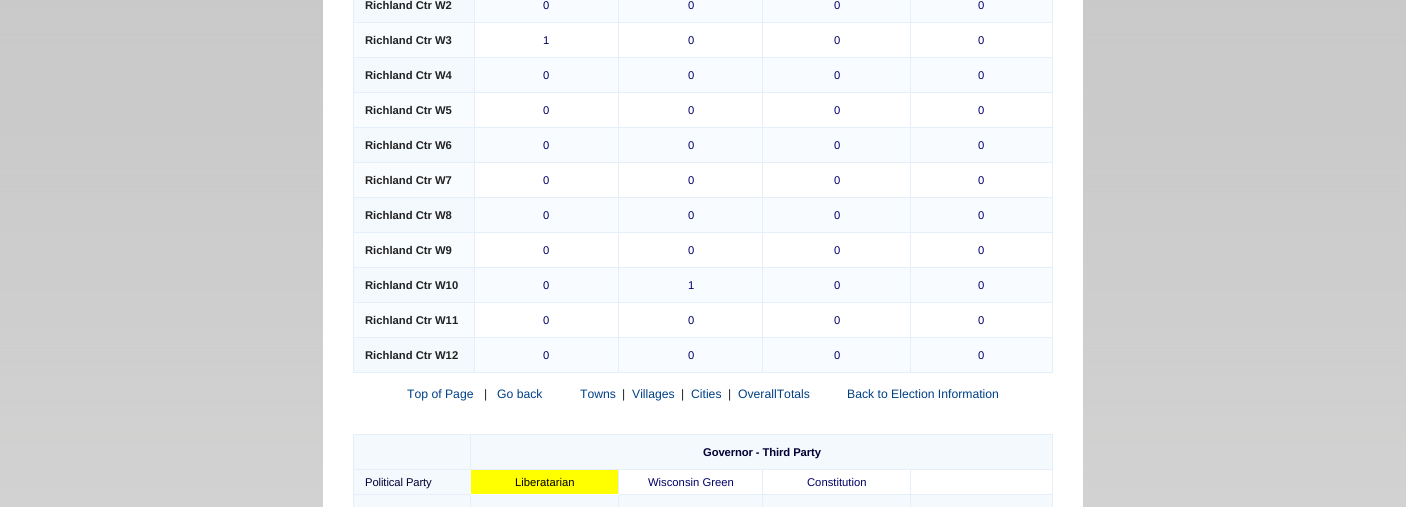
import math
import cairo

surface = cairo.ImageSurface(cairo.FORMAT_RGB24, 1406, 507)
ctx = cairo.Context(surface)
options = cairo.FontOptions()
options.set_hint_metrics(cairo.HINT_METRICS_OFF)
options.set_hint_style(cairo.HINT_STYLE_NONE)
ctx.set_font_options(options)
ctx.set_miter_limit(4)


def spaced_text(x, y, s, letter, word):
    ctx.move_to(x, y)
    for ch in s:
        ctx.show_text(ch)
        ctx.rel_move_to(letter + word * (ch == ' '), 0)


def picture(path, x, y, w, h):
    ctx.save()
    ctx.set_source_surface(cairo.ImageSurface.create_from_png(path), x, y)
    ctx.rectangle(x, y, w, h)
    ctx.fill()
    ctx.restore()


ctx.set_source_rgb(1, 1, 1)
ctx.paint()
picture("img1.png", 0, 0, 1406, 507)
ctx.set_source_rgb(1, 1, 1)
ctx.rectangle(323, 0, 760, 507)
ctx.fill()
ctx.set_source_rgb(0.898, 0.937, 0.973)
ctx.rectangle(1052, 0, 1, 373)
ctx.fill()
ctx.rectangle(353, 0, 1, 373)
ctx.fill()
ctx.set_source_rgb(0.957, 0.976, 0.996)
ctx.rectangle(354, 0, 120, 22)
ctx.fill()
ctx.set_source_rgb(0.898, 0.937, 0.973)
ctx.rectangle(910, 372, 143, 1)
ctx.fill()
ctx.rectangle(910, 337, 1, 36)
ctx.fill()
ctx.rectangle(910, 337, 143, 1)
ctx.fill()
ctx.rectangle(910, 302, 1, 36)
ctx.fill()
ctx.rectangle(910, 302, 143, 1)
ctx.fill()
ctx.rectangle(910, 267, 1, 36)
ctx.fill()
ctx.rectangle(910, 267, 143, 1)
ctx.fill()
ctx.rectangle(910, 232, 1, 36)
ctx.fill()
ctx.rectangle(910, 232, 143, 1)
ctx.fill()
ctx.rectangle(910, 197, 1, 36)
ctx.fill()
ctx.rectangle(910, 197, 143, 1)
ctx.fill()
ctx.rectangle(910, 162, 1, 36)
ctx.fill()
ctx.rectangle(910, 162, 143, 1)
ctx.fill()
ctx.rectangle(910, 127, 1, 36)
ctx.fill()
ctx.rectangle(910, 127, 143, 1)
ctx.fill()
ctx.rectangle(910, 92, 1, 36)
ctx.fill()
ctx.rectangle(910, 92, 143, 1)
ctx.fill()
ctx.rectangle(910, 57, 1, 36)
ctx.fill()
ctx.rectangle(910, 57, 143, 1)
ctx.fill()
ctx.rectangle(910, 22, 1, 36)
ctx.fill()
ctx.rectangle(910, 22, 143, 1)
ctx.fill()
ctx.rectangle(910, 0, 1, 23)
ctx.fill()
ctx.rectangle(762, 372, 149, 1)
ctx.fill()
ctx.rectangle(762, 337, 1, 36)
ctx.fill()
ctx.rectangle(762, 337, 149, 1)
ctx.fill()
ctx.rectangle(762, 302, 1, 36)
ctx.fill()
ctx.rectangle(762, 302, 149, 1)
ctx.fill()
ctx.rectangle(762, 267, 1, 36)
ctx.fill()
ctx.rectangle(762, 267, 149, 1)
ctx.fill()
ctx.rectangle(762, 232, 1, 36)
ctx.fill()
ctx.rectangle(762, 232, 149, 1)
ctx.fill()
ctx.rectangle(762, 197, 1, 36)
ctx.fill()
ctx.rectangle(762, 197, 149, 1)
ctx.fill()
ctx.rectangle(762, 162, 1, 36)
ctx.fill()
ctx.rectangle(762, 162, 149, 1)
ctx.fill()
ctx.rectangle(762, 127, 1, 36)
ctx.fill()
ctx.rectangle(762, 127, 149, 1)
ctx.fill()
ctx.rectangle(762, 92, 1, 36)
ctx.fill()
ctx.rectangle(762, 92, 149, 1)
ctx.fill()
ctx.rectangle(762, 57, 1, 36)
ctx.fill()
ctx.rectangle(762, 57, 149, 1)
ctx.fill()
ctx.rectangle(762, 22, 1, 36)
ctx.fill()
ctx.rectangle(762, 22, 149, 1)
ctx.fill()
ctx.rectangle(762, 0, 1, 23)
ctx.fill()
ctx.rectangle(618, 372, 145, 1)
ctx.fill()
ctx.rectangle(618, 337, 1, 36)
ctx.fill()
ctx.rectangle(618, 337, 145, 1)
ctx.fill()
ctx.rectangle(618, 302, 1, 36)
ctx.fill()
ctx.rectangle(618, 302, 145, 1)
ctx.fill()
ctx.rectangle(618, 267, 1, 36)
ctx.fill()
ctx.rectangle(618, 267, 145, 1)
ctx.fill()
ctx.rectangle(618, 232, 1, 36)
ctx.fill()
ctx.rectangle(618, 232, 145, 1)
ctx.fill()
ctx.rectangle(618, 197, 1, 36)
ctx.fill()
ctx.rectangle(618, 197, 145, 1)
ctx.fill()
ctx.rectangle(618, 162, 1, 36)
ctx.fill()
ctx.rectangle(618, 162, 145, 1)
ctx.fill()
ctx.rectangle(618, 127, 1, 36)
ctx.fill()
ctx.rectangle(618, 127, 145, 1)
ctx.fill()
ctx.rectangle(618, 92, 1, 36)
ctx.fill()
ctx.rectangle(618, 92, 145, 1)
ctx.fill()
ctx.rectangle(618, 57, 1, 36)
ctx.fill()
ctx.rectangle(618, 57, 145, 1)
ctx.fill()
ctx.rectangle(618, 22, 1, 36)
ctx.fill()
ctx.rectangle(618, 22, 145, 1)
ctx.fill()
ctx.rectangle(618, 0, 1, 23)
ctx.fill()
ctx.rectangle(474, 372, 145, 1)
ctx.fill()
ctx.rectangle(474, 337, 1, 36)
ctx.fill()
ctx.rectangle(474, 337, 145, 1)
ctx.fill()
ctx.rectangle(474, 302, 1, 36)
ctx.fill()
ctx.rectangle(474, 302, 145, 1)
ctx.fill()
ctx.rectangle(474, 267, 1, 36)
ctx.fill()
ctx.rectangle(474, 267, 145, 1)
ctx.fill()
ctx.rectangle(474, 232, 1, 36)
ctx.fill()
ctx.rectangle(474, 232, 145, 1)
ctx.fill()
ctx.rectangle(474, 197, 1, 36)
ctx.fill()
ctx.rectangle(474, 197, 145, 1)
ctx.fill()
ctx.rectangle(474, 162, 1, 36)
ctx.fill()
ctx.rectangle(474, 162, 145, 1)
ctx.fill()
ctx.rectangle(474, 127, 1, 36)
ctx.fill()
ctx.rectangle(474, 127, 145, 1)
ctx.fill()
ctx.rectangle(474, 92, 1, 36)
ctx.fill()
ctx.rectangle(474, 92, 145, 1)
ctx.fill()
ctx.rectangle(474, 57, 1, 36)
ctx.fill()
ctx.rectangle(474, 57, 145, 1)
ctx.fill()
ctx.rectangle(474, 22, 1, 36)
ctx.fill()
ctx.rectangle(474, 22, 145, 1)
ctx.fill()
ctx.rectangle(474, 0, 1, 23)
ctx.fill()
ctx.rectangle(353, 22, 122, 1)
ctx.fill()
ctx.select_font_face("Liberation Sans", cairo.FONT_SLANT_NORMAL, cairo.FONT_WEIGHT_BOLD)
ctx.set_font_size(11.25)
ctx.set_source_rgb(0.133, 0.133, 0.133)
ctx.move_to(365, 9)
ctx.show_text("Richland Ctr W2")
ctx.set_source_rgb(0.969, 0.984, 1)
ctx.rectangle(475, 0, 143, 22)
ctx.fill()
ctx.select_font_face("Liberation Sans")
ctx.set_source_rgb(0, 0, 0.4)
ctx.move_to(543, 9)
ctx.show_text("0")
ctx.set_source_rgb(0.969, 0.984, 1)
ctx.rectangle(619, 0, 143, 22)
ctx.fill()
ctx.set_source_rgb(0, 0, 0.4)
ctx.move_to(688, 9)
ctx.show_text("0")
ctx.set_source_rgb(0.969, 0.984, 1)
ctx.rectangle(763, 0, 147, 22)
ctx.fill()
ctx.set_source_rgb(0, 0, 0.4)
ctx.move_to(834, 9)
ctx.show_text("0")
ctx.set_source_rgb(0.969, 0.984, 1)
ctx.rectangle(911, 0, 141, 22)
ctx.fill()
ctx.set_source_rgb(0, 0, 0.4)
ctx.move_to(978, 9)
ctx.show_text("0")
ctx.set_source_rgb(0.976, 0.988, 0.996)
ctx.rectangle(354, 23, 120, 34)
ctx.fill()
ctx.set_source_rgb(0.898, 0.937, 0.973)
ctx.rectangle(353, 57, 122, 1)
ctx.fill()
ctx.select_font_face("Liberation Sans", cairo.FONT_SLANT_NORMAL, cairo.FONT_WEIGHT_BOLD)
ctx.set_source_rgb(0.133, 0.133, 0.133)
ctx.move_to(365, 44)
ctx.show_text("Richland Ctr W3")
ctx.select_font_face("Liberation Sans")
ctx.set_source_rgb(0, 0, 0.4)
ctx.move_to(543, 44)
ctx.show_text("1")
ctx.move_to(688, 44)
ctx.show_text("0")
ctx.move_to(834, 44)
ctx.show_text("0")
ctx.move_to(978, 44)
ctx.show_text("0")
ctx.set_source_rgb(0.957, 0.976, 0.996)
ctx.rectangle(354, 58, 120, 34)
ctx.fill()
ctx.set_source_rgb(0.898, 0.937, 0.973)
ctx.rectangle(353, 92, 122, 1)
ctx.fill()
ctx.select_font_face("Liberation Sans", cairo.FONT_SLANT_NORMAL, cairo.FONT_WEIGHT_BOLD)
ctx.set_source_rgb(0.133, 0.133, 0.133)
ctx.move_to(365, 79)
ctx.show_text("Richland Ctr W4")
ctx.set_source_rgb(0.969, 0.984, 1)
ctx.rectangle(475, 58, 143, 34)
ctx.fill()
ctx.select_font_face("Liberation Sans")
ctx.set_source_rgb(0, 0, 0.4)
ctx.move_to(543, 79)
ctx.show_text("0")
ctx.set_source_rgb(0.969, 0.984, 1)
ctx.rectangle(619, 58, 143, 34)
ctx.fill()
ctx.set_source_rgb(0, 0, 0.4)
ctx.move_to(688, 79)
ctx.show_text("0")
ctx.set_source_rgb(0.969, 0.984, 1)
ctx.rectangle(763, 58, 147, 34)
ctx.fill()
ctx.set_source_rgb(0, 0, 0.4)
ctx.move_to(834, 79)
ctx.show_text("0")
ctx.set_source_rgb(0.969, 0.984, 1)
ctx.rectangle(911, 58, 141, 34)
ctx.fill()
ctx.set_source_rgb(0, 0, 0.4)
ctx.move_to(978, 79)
ctx.show_text("0")
ctx.set_source_rgb(0.976, 0.988, 0.996)
ctx.rectangle(354, 93, 120, 34)
ctx.fill()
ctx.set_source_rgb(0.898, 0.937, 0.973)
ctx.rectangle(353, 127, 122, 1)
ctx.fill()
ctx.select_font_face("Liberation Sans", cairo.FONT_SLANT_NORMAL, cairo.FONT_WEIGHT_BOLD)
ctx.set_source_rgb(0.133, 0.133, 0.133)
ctx.move_to(365, 114)
ctx.show_text("Richland Ctr W5")
ctx.select_font_face("Liberation Sans")
ctx.set_source_rgb(0, 0, 0.4)
ctx.move_to(543, 114)
ctx.show_text("0")
ctx.move_to(688, 114)
ctx.show_text("0")
ctx.move_to(834, 114)
ctx.show_text("0")
ctx.move_to(978, 114)
ctx.show_text("0")
ctx.set_source_rgb(0.957, 0.976, 0.996)
ctx.rectangle(354, 128, 120, 34)
ctx.fill()
ctx.set_source_rgb(0.898, 0.937, 0.973)
ctx.rectangle(353, 162, 122, 1)
ctx.fill()
ctx.select_font_face("Liberation Sans", cairo.FONT_SLANT_NORMAL, cairo.FONT_WEIGHT_BOLD)
ctx.set_source_rgb(0.133, 0.133, 0.133)
ctx.move_to(365, 149)
ctx.show_text("Richland Ctr W6")
ctx.set_source_rgb(0.969, 0.984, 1)
ctx.rectangle(475, 128, 143, 34)
ctx.fill()
ctx.select_font_face("Liberation Sans")
ctx.set_source_rgb(0, 0, 0.4)
ctx.move_to(543, 149)
ctx.show_text("0")
ctx.set_source_rgb(0.969, 0.984, 1)
ctx.rectangle(619, 128, 143, 34)
ctx.fill()
ctx.set_source_rgb(0, 0, 0.4)
ctx.move_to(688, 149)
ctx.show_text("0")
ctx.set_source_rgb(0.969, 0.984, 1)
ctx.rectangle(763, 128, 147, 34)
ctx.fill()
ctx.set_source_rgb(0, 0, 0.4)
ctx.move_to(834, 149)
ctx.show_text("0")
ctx.set_source_rgb(0.969, 0.984, 1)
ctx.rectangle(911, 128, 141, 34)
ctx.fill()
ctx.set_source_rgb(0, 0, 0.4)
ctx.move_to(978, 149)
ctx.show_text("0")
ctx.set_source_rgb(0.976, 0.988, 0.996)
ctx.rectangle(354, 163, 120, 34)
ctx.fill()
ctx.set_source_rgb(0.898, 0.937, 0.973)
ctx.rectangle(353, 197, 122, 1)
ctx.fill()
ctx.select_font_face("Liberation Sans", cairo.FONT_SLANT_NORMAL, cairo.FONT_WEIGHT_BOLD)
ctx.set_source_rgb(0.133, 0.133, 0.133)
ctx.move_to(365, 184)
ctx.show_text("Richland Ctr W7")
ctx.select_font_face("Liberation Sans")
ctx.set_source_rgb(0, 0, 0.4)
ctx.move_to(543, 184)
ctx.show_text("0")
ctx.move_to(688, 184)
ctx.show_text("0")
ctx.move_to(834, 184)
ctx.show_text("0")
ctx.move_to(978, 184)
ctx.show_text("0")
ctx.set_source_rgb(0.957, 0.976, 0.996)
ctx.rectangle(354, 198, 120, 34)
ctx.fill()
ctx.set_source_rgb(0.898, 0.937, 0.973)
ctx.rectangle(353, 232, 122, 1)
ctx.fill()
ctx.select_font_face("Liberation Sans", cairo.FONT_SLANT_NORMAL, cairo.FONT_WEIGHT_BOLD)
ctx.set_source_rgb(0.133, 0.133, 0.133)
ctx.move_to(365, 219)
ctx.show_text("Richland Ctr W8")
ctx.set_source_rgb(0.969, 0.984, 1)
ctx.rectangle(475, 198, 143, 34)
ctx.fill()
ctx.select_font_face("Liberation Sans")
ctx.set_source_rgb(0, 0, 0.4)
ctx.move_to(543, 219)
ctx.show_text("0")
ctx.set_source_rgb(0.969, 0.984, 1)
ctx.rectangle(619, 198, 143, 34)
ctx.fill()
ctx.set_source_rgb(0, 0, 0.4)
ctx.move_to(688, 219)
ctx.show_text("0")
ctx.set_source_rgb(0.969, 0.984, 1)
ctx.rectangle(763, 198, 147, 34)
ctx.fill()
ctx.set_source_rgb(0, 0, 0.4)
ctx.move_to(834, 219)
ctx.show_text("0")
ctx.set_source_rgb(0.969, 0.984, 1)
ctx.rectangle(911, 198, 141, 34)
ctx.fill()
ctx.set_source_rgb(0, 0, 0.4)
ctx.move_to(978, 219)
ctx.show_text("0")
ctx.set_source_rgb(0.976, 0.988, 0.996)
ctx.rectangle(354, 233, 120, 34)
ctx.fill()
ctx.set_source_rgb(0.898, 0.937, 0.973)
ctx.rectangle(353, 267, 122, 1)
ctx.fill()
ctx.select_font_face("Liberation Sans", cairo.FONT_SLANT_NORMAL, cairo.FONT_WEIGHT_BOLD)
ctx.set_source_rgb(0.133, 0.133, 0.133)
ctx.move_to(365, 254)
ctx.show_text("Richland Ctr W9")
ctx.select_font_face("Liberation Sans")
ctx.set_source_rgb(0, 0, 0.4)
ctx.move_to(543, 254)
ctx.show_text("0")
ctx.move_to(688, 254)
ctx.show_text("0")
ctx.move_to(834, 254)
ctx.show_text("0")
ctx.move_to(978, 254)
ctx.show_text("0")
ctx.set_source_rgb(0.957, 0.976, 0.996)
ctx.rectangle(354, 268, 120, 34)
ctx.fill()
ctx.set_source_rgb(0.898, 0.937, 0.973)
ctx.rectangle(353, 302, 122, 1)
ctx.fill()
ctx.select_font_face("Liberation Sans", cairo.FONT_SLANT_NORMAL, cairo.FONT_WEIGHT_BOLD)
ctx.set_source_rgb(0.133, 0.133, 0.133)
ctx.move_to(365, 289)
ctx.show_text("Richland Ctr W10")
ctx.set_source_rgb(0.969, 0.984, 1)
ctx.rectangle(475, 268, 143, 34)
ctx.fill()
ctx.select_font_face("Liberation Sans")
ctx.set_source_rgb(0, 0, 0.4)
ctx.move_to(543, 289)
ctx.show_text("0")
ctx.set_source_rgb(0.969, 0.984, 1)
ctx.rectangle(619, 268, 143, 34)
ctx.fill()
ctx.set_source_rgb(0, 0, 0.4)
ctx.move_to(688, 289)
ctx.show_text("1")
ctx.set_source_rgb(0.969, 0.984, 1)
ctx.rectangle(763, 268, 147, 34)
ctx.fill()
ctx.set_source_rgb(0, 0, 0.4)
ctx.move_to(834, 289)
ctx.show_text("0")
ctx.set_source_rgb(0.969, 0.984, 1)
ctx.rectangle(911, 268, 141, 34)
ctx.fill()
ctx.set_source_rgb(0, 0, 0.4)
ctx.move_to(978, 289)
ctx.show_text("0")
ctx.set_source_rgb(0.976, 0.988, 0.996)
ctx.rectangle(354, 303, 120, 34)
ctx.fill()
ctx.set_source_rgb(0.898, 0.937, 0.973)
ctx.rectangle(353, 337, 122, 1)
ctx.fill()
ctx.select_font_face("Liberation Sans", cairo.FONT_SLANT_NORMAL, cairo.FONT_WEIGHT_BOLD)
ctx.set_source_rgb(0.133, 0.133, 0.133)
ctx.move_to(365, 324)
ctx.show_text("Richland Ctr W11")
ctx.select_font_face("Liberation Sans")
ctx.set_source_rgb(0, 0, 0.4)
ctx.move_to(543, 324)
ctx.show_text("0")
ctx.move_to(688, 324)
ctx.show_text("0")
ctx.move_to(834, 324)
ctx.show_text("0")
ctx.move_to(978, 324)
ctx.show_text("0")
ctx.set_source_rgb(0.957, 0.976, 0.996)
ctx.rectangle(354, 338, 120, 34)
ctx.fill()
ctx.set_source_rgb(0.898, 0.937, 0.973)
ctx.rectangle(353, 372, 122, 1)
ctx.fill()
ctx.select_font_face("Liberation Sans", cairo.FONT_SLANT_NORMAL, cairo.FONT_WEIGHT_BOLD)
ctx.set_source_rgb(0.133, 0.133, 0.133)
ctx.move_to(365, 359)
ctx.show_text("Richland Ctr W12")
ctx.set_source_rgb(0.969, 0.984, 1)
ctx.rectangle(475, 338, 143, 34)
ctx.fill()
ctx.select_font_face("Liberation Sans")
ctx.set_source_rgb(0, 0, 0.4)
ctx.move_to(543, 359)
ctx.show_text("0")
ctx.set_source_rgb(0.969, 0.984, 1)
ctx.rectangle(619, 338, 143, 34)
ctx.fill()
ctx.set_source_rgb(0, 0, 0.4)
ctx.move_to(688, 359)
ctx.show_text("0")
ctx.set_source_rgb(0.969, 0.984, 1)
ctx.rectangle(763, 338, 147, 34)
ctx.fill()
ctx.set_source_rgb(0, 0, 0.4)
ctx.move_to(834, 359)
ctx.show_text("0")
ctx.set_source_rgb(0.969, 0.984, 1)
ctx.rectangle(911, 338, 141, 34)
ctx.fill()
ctx.set_source_rgb(0, 0, 0.4)
ctx.move_to(978, 359)
ctx.show_text("0")
ctx.set_font_size(12.2)
ctx.set_source_rgb(0, 0.251, 0.522)
ctx.move_to(407, 398)
ctx.show_text("Top of Page")
ctx.set_source_rgb(0.133, 0.133, 0.133)
ctx.move_to(484, 398)
ctx.show_text("|")
ctx.set_source_rgb(0, 0.251, 0.522)
ctx.move_to(497, 398)
ctx.show_text("Go back")
ctx.move_to(580, 398)
ctx.show_text("Towns")
ctx.set_source_rgb(0.133, 0.133, 0.133)
ctx.move_to(622, 398)
ctx.show_text("|")
ctx.set_source_rgb(0, 0.251, 0.522)
ctx.move_to(632, 398)
ctx.show_text("Villages")
ctx.set_source_rgb(0.133, 0.133, 0.133)
ctx.move_to(681, 398)
ctx.show_text("|")
ctx.set_source_rgb(0, 0.251, 0.522)
ctx.move_to(691, 398)
ctx.show_text("Cities")
ctx.set_source_rgb(0.133, 0.133, 0.133)
ctx.move_to(728, 398)
ctx.show_text("|")
ctx.set_source_rgb(0, 0.251, 0.522)
ctx.move_to(738, 398)
ctx.show_text("OverallTotals")
ctx.move_to(847, 398)
ctx.show_text("Back to Election Information")
ctx.set_source_rgb(0.898, 0.937, 0.973)
ctx.rectangle(353, 434, 700, 1)
ctx.fill()
ctx.rectangle(1052, 434, 1, 73)
ctx.fill()
ctx.rectangle(353, 434, 1, 73)
ctx.fill()
ctx.set_source_rgb(0.957, 0.976, 0.996)
ctx.rectangle(354, 435, 116, 34)
ctx.fill()
ctx.set_source_rgb(0.898, 0.937, 0.973)
ctx.rectangle(910, 494, 1, 13)
ctx.fill()
ctx.rectangle(910, 494, 143, 1)
ctx.fill()
ctx.rectangle(910, 469, 1, 26)
ctx.fill()
ctx.rectangle(762, 494, 1, 13)
ctx.fill()
ctx.rectangle(762, 494, 149, 1)
ctx.fill()
ctx.rectangle(762, 469, 1, 26)
ctx.fill()
ctx.rectangle(618, 494, 1, 13)
ctx.fill()
ctx.rectangle(618, 494, 145, 1)
ctx.fill()
ctx.rectangle(618, 469, 1, 26)
ctx.fill()
ctx.rectangle(470, 469, 583, 1)
ctx.fill()
ctx.rectangle(470, 434, 1, 36)
ctx.fill()
ctx.rectangle(353, 469, 118, 1)
ctx.fill()
ctx.set_source_rgb(0.957, 0.976, 0.996)
ctx.rectangle(471, 435, 581, 34)
ctx.fill()
ctx.select_font_face("Liberation Sans", cairo.FONT_SLANT_NORMAL, cairo.FONT_WEIGHT_BOLD)
ctx.set_font_size(11.25)
ctx.set_source_rgb(0, 0, 0.2)
spaced_text(703, 456, "Governor - Third Party", -0.1, 0)
ctx.set_source_rgb(0.957, 0.976, 0.996)
ctx.rectangle(354, 470, 116, 24)
ctx.fill()
ctx.set_source_rgb(0.898, 0.937, 0.973)
ctx.rectangle(470, 494, 1, 13)
ctx.fill()
ctx.set_source_rgb(1, 1, 1)
ctx.rectangle(470, 494, 149, 1)
ctx.fill()
ctx.set_source_rgb(0.898, 0.937, 0.973)
ctx.rectangle(353, 494, 118, 1)
ctx.fill()
ctx.select_font_face("Liberation Sans")
ctx.set_source_rgb(0, 0, 0.2)
spaced_text(365, 486, "Political Party", -0.1, 0)
ctx.set_source_rgb(1, 1, 0)
ctx.rectangle(471, 470, 147, 24)
ctx.fill()
ctx.set_source_rgb(0, 0, 0)
ctx.move_to(515, 486)
ctx.show_text("Liberatarian")
ctx.set_source_rgb(0, 0, 0.4)
ctx.move_to(648, 486)
ctx.show_text("Wisconsin Green")
ctx.move_to(807, 486)
ctx.show_text("Constitution")
ctx.set_source_rgb(0.957, 0.976, 0.996)
ctx.rectangle(354, 495, 116, 12)
ctx.fill()
ctx.rectangle(471, 495, 147, 12)
ctx.fill()
ctx.rectangle(619, 495, 143, 12)
ctx.fill()
ctx.rectangle(763, 495, 147, 12)
ctx.fill()
ctx.rectangle(911, 495, 141, 12)
ctx.fill()
surface.write_to_png("page.png")
